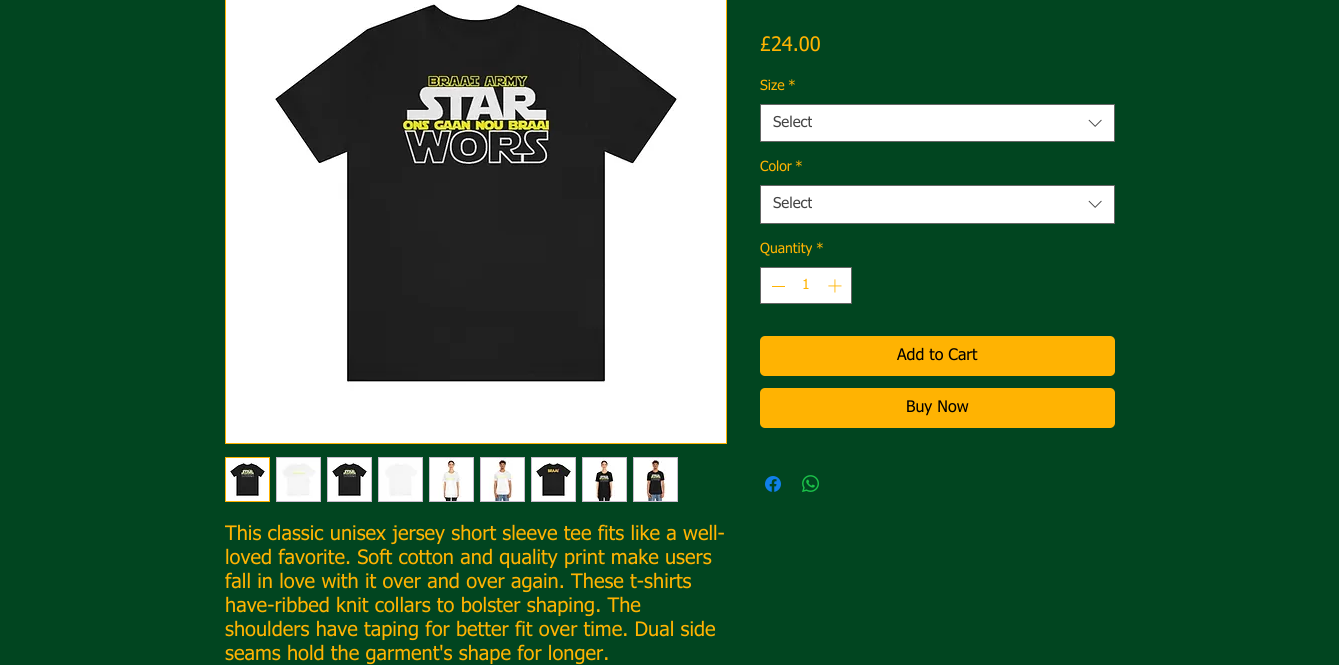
import math
import cairo

surface = cairo.ImageSurface(cairo.FORMAT_RGB24, 1339, 665)
ctx = cairo.Context(surface)
options = cairo.FontOptions()
options.set_hint_metrics(cairo.HINT_METRICS_OFF)
options.set_hint_style(cairo.HINT_STYLE_NONE)
ctx.set_font_options(options)
ctx.set_miter_limit(4)


def round_rect(x, y, w, h, r):
    ctx.new_sub_path()
    for i, (u, v) in enumerate([(x + w - r, y + h - r), (x + r, y + h - r), (x + r, y + r), (x + w - r, y + r)]):
        ctx.arc(u, v, r, i * math.pi / 2, (i + 1) * math.pi / 2)
    ctx.close_path()


def picture(path, x, y, w, h):
    ctx.save()
    ctx.set_source_surface(cairo.ImageSurface.create_from_png(path), x, y)
    ctx.rectangle(x, y, w, h)
    ctx.fill()
    ctx.restore()


ctx.set_source_rgb(0.004, 0.271, 0.125)
ctx.paint()
ctx.select_font_face("tahoma")
ctx.set_font_size(20)
ctx.set_source_rgb(1, 0.702, 0.008)
ctx.move_to(760, 51)
ctx.show_text("£24.00")
ctx.set_font_size(14)
ctx.move_to(760, 90)
ctx.show_text("Size")
ctx.move_to(788, 90)
ctx.show_text("*")
ctx.set_source_rgb(1, 1, 1)
ctx.rectangle(760.5, 104.5, 354, 37)
ctx.fill_preserve()
ctx.set_source_rgb(0.4, 0.4, 0.4)
ctx.set_line_width(1)
ctx.stroke()
ctx.set_font_size(15)
ctx.set_source_rgb(0.267, 0.267, 0.267)
ctx.move_to(773, 127)
ctx.show_text("Select")
picture("img1.png", 1088, 119, 14, 8)
ctx.set_font_size(14)
ctx.set_source_rgb(1, 0.702, 0.008)
ctx.move_to(760, 171)
ctx.show_text("Color")
ctx.move_to(795, 171)
ctx.show_text("*")
ctx.set_source_rgb(1, 1, 1)
ctx.rectangle(760.5, 185.5, 354, 38)
ctx.fill_preserve()
ctx.set_source_rgb(0.4, 0.4, 0.4)
ctx.stroke()
ctx.set_font_size(15)
ctx.set_source_rgb(0.267, 0.267, 0.267)
ctx.move_to(773, 208)
ctx.show_text("Select")
picture("img1.png", 1088, 200, 14, 8)
ctx.set_font_size(14)
ctx.set_source_rgb(1, 0.702, 0.008)
ctx.move_to(760, 253)
ctx.show_text("Quantity")
ctx.move_to(816, 253)
ctx.show_text("*")
ctx.set_source_rgb(1, 1, 1)
ctx.rectangle(760.5, 267.5, 91, 36)
ctx.fill_preserve()
ctx.set_source_rgb(0.4, 0.4, 0.4)
ctx.stroke()
ctx.set_source_rgb(1, 0.702, 0.008)
ctx.rectangle(772, 286, 13, 1)
ctx.fill()
ctx.move_to(802, 289)
ctx.show_text("1")
picture("img2.png", 828, 279, 14, 14)
round_rect(760, 336, 355, 40, 5)
ctx.fill()
ctx.set_font_size(16)
ctx.set_source_rgb(0, 0, 0)
ctx.move_to(897, 360)
ctx.show_text("Add to Cart")
ctx.set_source_rgb(1, 0.702, 0.008)
round_rect(760, 388, 355, 40, 5)
ctx.fill()
ctx.set_source_rgb(0, 0, 0)
ctx.move_to(906, 412)
ctx.show_text("Buy Now")
picture("img3.png", 765, 476, 16, 16)
picture("img4.png", 802, 475, 17, 17)
ctx.rectangle(225.5, -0.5, 501, 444)
ctx.set_source_rgb(1, 0.702, 0.008)
ctx.stroke()
picture("img5.png", 226, 0, 500, 443)
ctx.rectangle(225.5, 457.5, 44, 44)
ctx.stroke()
picture("img6.png", 226, 458, 43, 43)
ctx.set_source_rgb(0.792, 0.741, 0.804)
ctx.rectangle(276, 457, 45, 45)
ctx.fill()
picture("img7.png", 277, 458, 43, 43)
ctx.rectangle(327, 457, 45, 45)
ctx.fill()
picture("img6.png", 328, 458, 43, 43)
ctx.rectangle(378, 457, 45, 45)
ctx.fill()
picture("img8.png", 379, 458, 43, 43)
ctx.rectangle(429, 457, 45, 45)
ctx.fill()
picture("img9.png", 430, 458, 43, 43)
ctx.rectangle(480, 457, 45, 45)
ctx.fill()
picture("img10.png", 481, 458, 43, 43)
ctx.rectangle(531, 457, 45, 45)
ctx.fill()
picture("img11.png", 532, 458, 43, 43)
ctx.rectangle(582, 457, 45, 45)
ctx.fill()
picture("img12.png", 583, 458, 43, 43)
ctx.rectangle(633, 457, 45, 45)
ctx.fill()
picture("img13.png", 634, 458, 43, 43)
ctx.save()
ctx.rectangle(225, 522, 500, 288)
ctx.clip()
ctx.set_font_size(20)
ctx.set_source_rgb(1, 0.702, 0.008)
ctx.move_to(225, 540)
ctx.show_text("This classic unisex jersey short sleeve tee fits like a well-")
ctx.restore()
ctx.set_font_size(20)
ctx.set_source_rgb(1, 0.702, 0.008)
ctx.move_to(225, 564)
ctx.show_text("loved favorite. Soft cotton and quality print make users")
ctx.move_to(225, 588)
ctx.show_text("fall in love with it over and over again. These t-shirts")
ctx.move_to(225, 612)
ctx.show_text("have-ribbed knit collars to bolster shaping. The")
ctx.move_to(225, 636)
ctx.show_text("shoulders have taping for better fit over time. Dual side")
ctx.move_to(225, 660)
ctx.show_text("seams hold the garment's shape for longer.")
surface.write_to_png("page.png")
